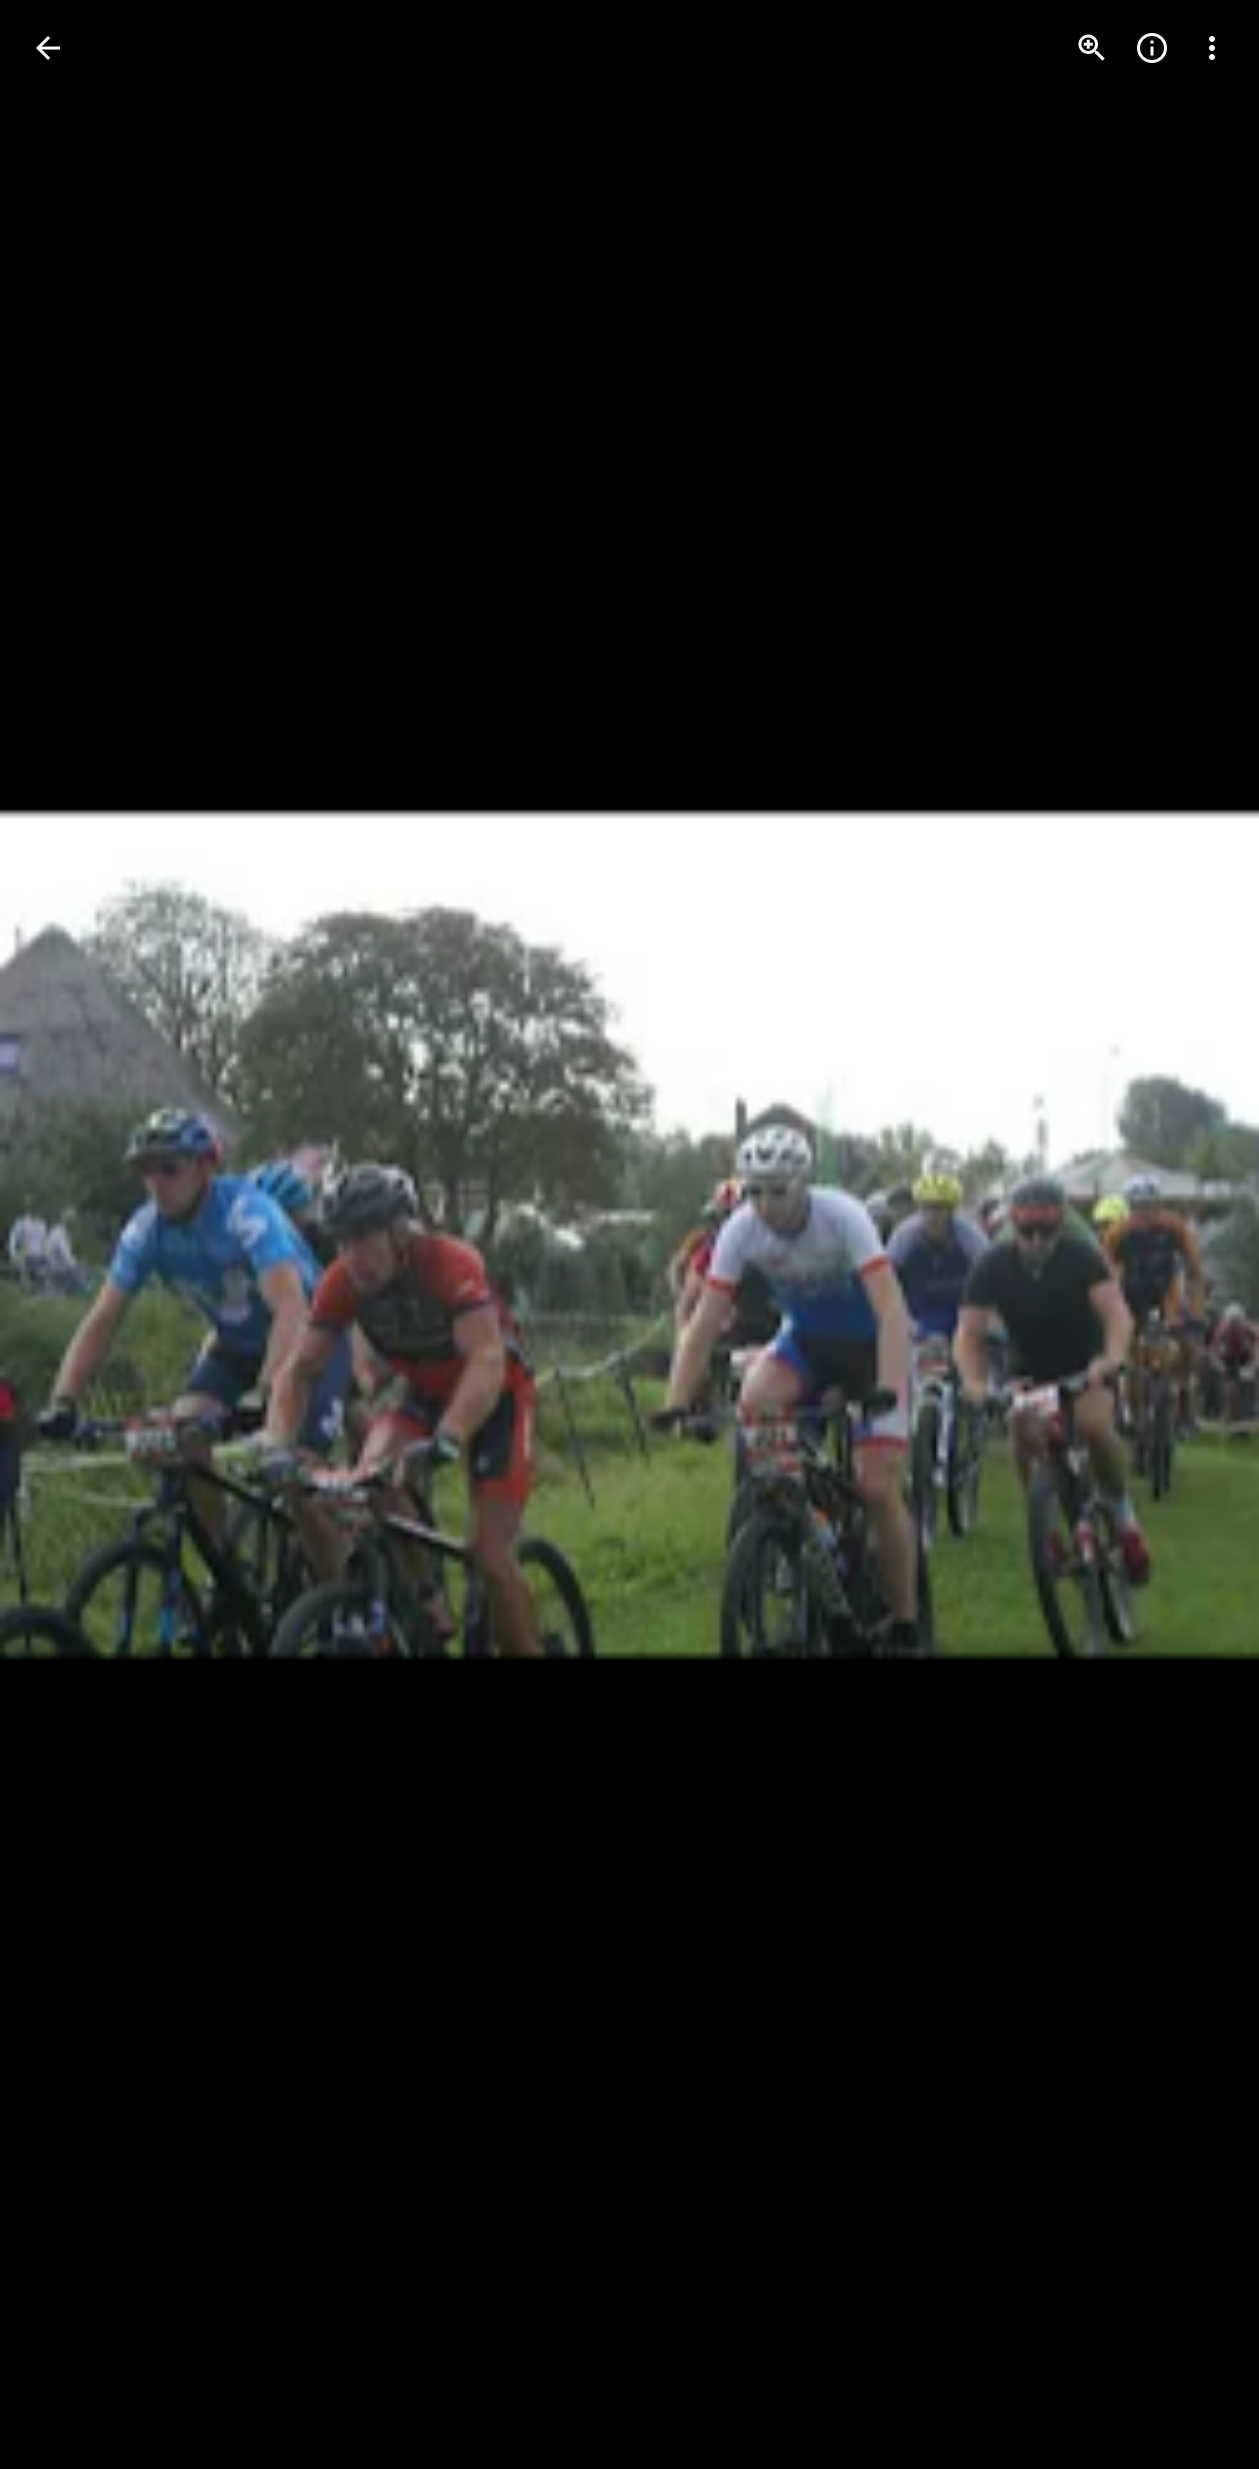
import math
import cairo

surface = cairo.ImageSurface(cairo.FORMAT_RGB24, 1259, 2469)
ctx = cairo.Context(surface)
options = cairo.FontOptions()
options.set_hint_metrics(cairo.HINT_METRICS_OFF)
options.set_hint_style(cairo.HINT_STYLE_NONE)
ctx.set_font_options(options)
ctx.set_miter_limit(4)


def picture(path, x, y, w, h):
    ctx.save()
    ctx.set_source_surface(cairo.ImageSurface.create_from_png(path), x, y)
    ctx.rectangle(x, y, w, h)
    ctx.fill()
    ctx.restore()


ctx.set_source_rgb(0, 0, 0)
ctx.paint()
picture("img1.png", 36, 36, 24, 24)
picture("img2.png", 1078, 34, 27, 27)
picture("img3.png", 1137, 33, 30, 30)
picture("img4.png", 1209, 36, 6, 24)
picture("img5.png", 0, 809, 1259, 851)
surface.write_to_png("page.png")
